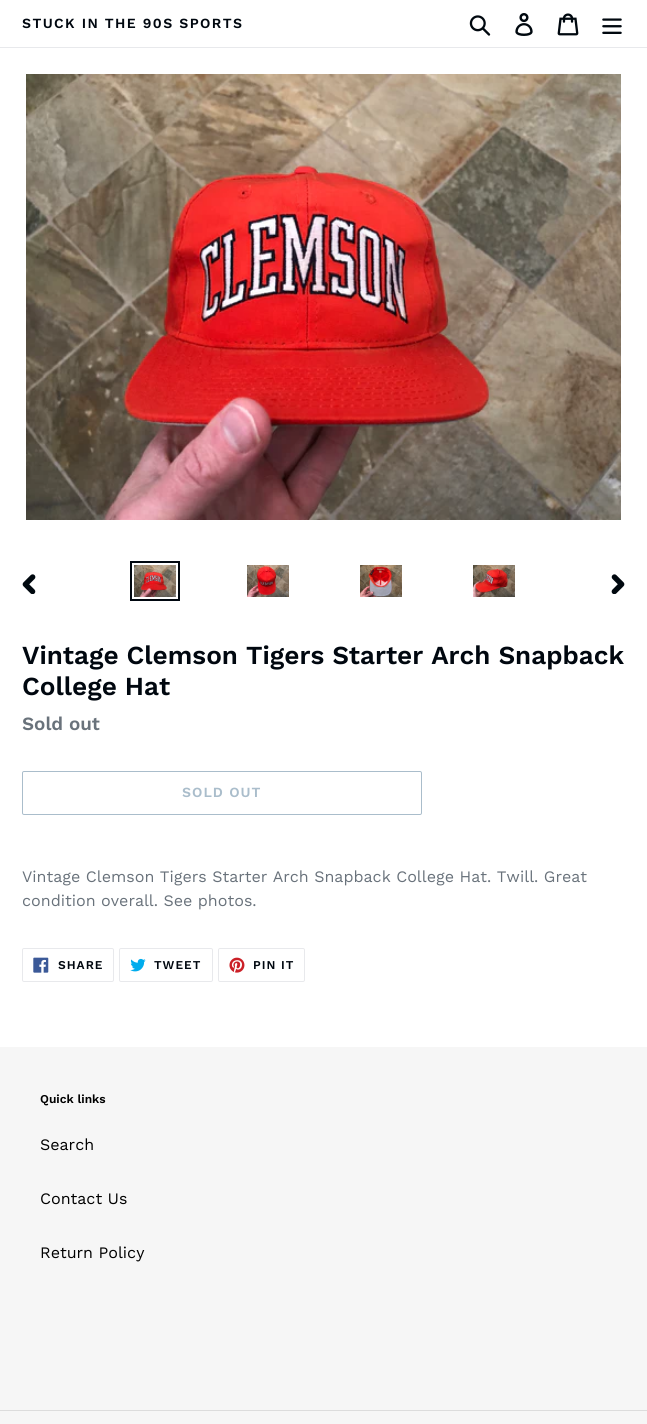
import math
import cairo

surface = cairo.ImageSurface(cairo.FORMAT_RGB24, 647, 1424)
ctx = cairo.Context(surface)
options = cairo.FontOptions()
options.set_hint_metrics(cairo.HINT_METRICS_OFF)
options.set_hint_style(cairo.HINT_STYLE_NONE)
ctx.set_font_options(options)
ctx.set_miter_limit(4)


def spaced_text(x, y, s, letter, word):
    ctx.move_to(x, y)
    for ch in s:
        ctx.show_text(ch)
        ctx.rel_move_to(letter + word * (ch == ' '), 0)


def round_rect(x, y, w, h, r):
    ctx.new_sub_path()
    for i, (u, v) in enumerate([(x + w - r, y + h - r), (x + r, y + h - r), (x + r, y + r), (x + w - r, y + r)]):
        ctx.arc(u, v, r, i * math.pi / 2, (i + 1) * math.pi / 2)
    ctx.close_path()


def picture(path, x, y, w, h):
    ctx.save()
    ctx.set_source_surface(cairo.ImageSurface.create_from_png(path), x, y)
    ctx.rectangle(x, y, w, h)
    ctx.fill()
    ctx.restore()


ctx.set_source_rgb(1, 1, 1)
ctx.paint()
ctx.set_source_rgb(0.91, 0.914, 0.922)
ctx.rectangle(0, 47, 647, 1)
ctx.fill()
ctx.select_font_face("Work Sans SemiBold")
ctx.set_font_size(14)
ctx.set_source_rgb(0, 0.031, 0.059)
spaced_text(22, 28, "STUCK IN THE 90S SPORTS", 1.4, 0)
picture("img1.png", 469, 15, 22, 21)
picture("img2.png", 515, 13, 18, 23)
picture("img3.png", 557, 13, 22, 23)
picture("img4.png", 602, 18, 20, 16)
picture("img5.png", 26, 74, 595, 446)
picture("img6.png", 22, 574, 14, 20)
ctx.rectangle(131, 562, 48, 38)
ctx.stroke()
picture("img7.png", 134, 565, 42, 32)
picture("img8.png", 247, 565, 42, 32)
picture("img9.png", 360, 565, 42, 32)
picture("img10.png", 473, 565, 42, 32)
picture("img11.png", 611, 574, 14, 20)
ctx.set_font_size(26)
ctx.move_to(22, 664)
ctx.show_text("Vintage Clemson Tigers Starter Arch Snapback")
ctx.move_to(22, 695)
ctx.show_text("College Hat")
ctx.set_font_size(18.75)
ctx.set_source_rgb(0.412, 0.447, 0.482)
ctx.move_to(22, 730)
ctx.show_text("Sold out")
round_rect(22.5, 771.5, 399, 43, 1.5)
ctx.set_source_rgb(0.667, 0.741, 0.796)
ctx.set_line_width(1)
ctx.stroke()
ctx.set_font_size(14)
spaced_text(182, 797, "SOLD OUT", 1, 0)
ctx.select_font_face("Work Sans")
ctx.set_font_size(16)
ctx.set_source_rgb(0.412, 0.447, 0.482)
ctx.move_to(22, 882)
ctx.show_text("Vintage Clemson Tigers Starter Arch Snapback College Hat. Twill. Great")
ctx.move_to(22, 906)
ctx.show_text("condition overall. See photos.")
round_rect(22.5, 948.5, 91, 33, 1.5)
ctx.set_source_rgb(0.91, 0.914, 0.922)
ctx.stroke()
picture("img12.png", 33, 957, 16, 16)
ctx.select_font_face("Work Sans SemiBold")
ctx.set_font_size(12)
ctx.set_source_rgb(0, 0.031, 0.059)
spaced_text(58, 969, "SHARE", 1, 0)
round_rect(119.5, 948.5, 93, 33, 1.5)
ctx.set_source_rgb(0.91, 0.914, 0.922)
ctx.stroke()
picture("img13.png", 130, 958, 16, 14)
ctx.set_source_rgb(0, 0.031, 0.059)
spaced_text(154, 969, "TWEET", 1, 0)
round_rect(218.5, 948.5, 86, 33, 1.5)
ctx.set_source_rgb(0.91, 0.914, 0.922)
ctx.stroke()
picture("img14.png", 229, 957, 16, 16)
ctx.set_source_rgb(0, 0.031, 0.059)
spaced_text(253, 969, "PIN IT", 1, 0)
ctx.set_source_rgb(0.961, 0.961, 0.961)
ctx.rectangle(0, 1047, 647, 377)
ctx.fill()
ctx.set_source_rgb(0, 0, 0)
ctx.move_to(40, 1103)
ctx.show_text("Quick links")
ctx.select_font_face("Work Sans")
ctx.set_font_size(16)
ctx.move_to(40, 1150)
ctx.show_text("Search")
ctx.move_to(40, 1204)
ctx.show_text("Contact Us")
ctx.move_to(40, 1258)
ctx.show_text("Return Policy")
ctx.set_source_rgb(0.863, 0.863, 0.863)
ctx.rectangle(0, 1410, 647, 1)
ctx.fill()
surface.write_to_png("page.png")
